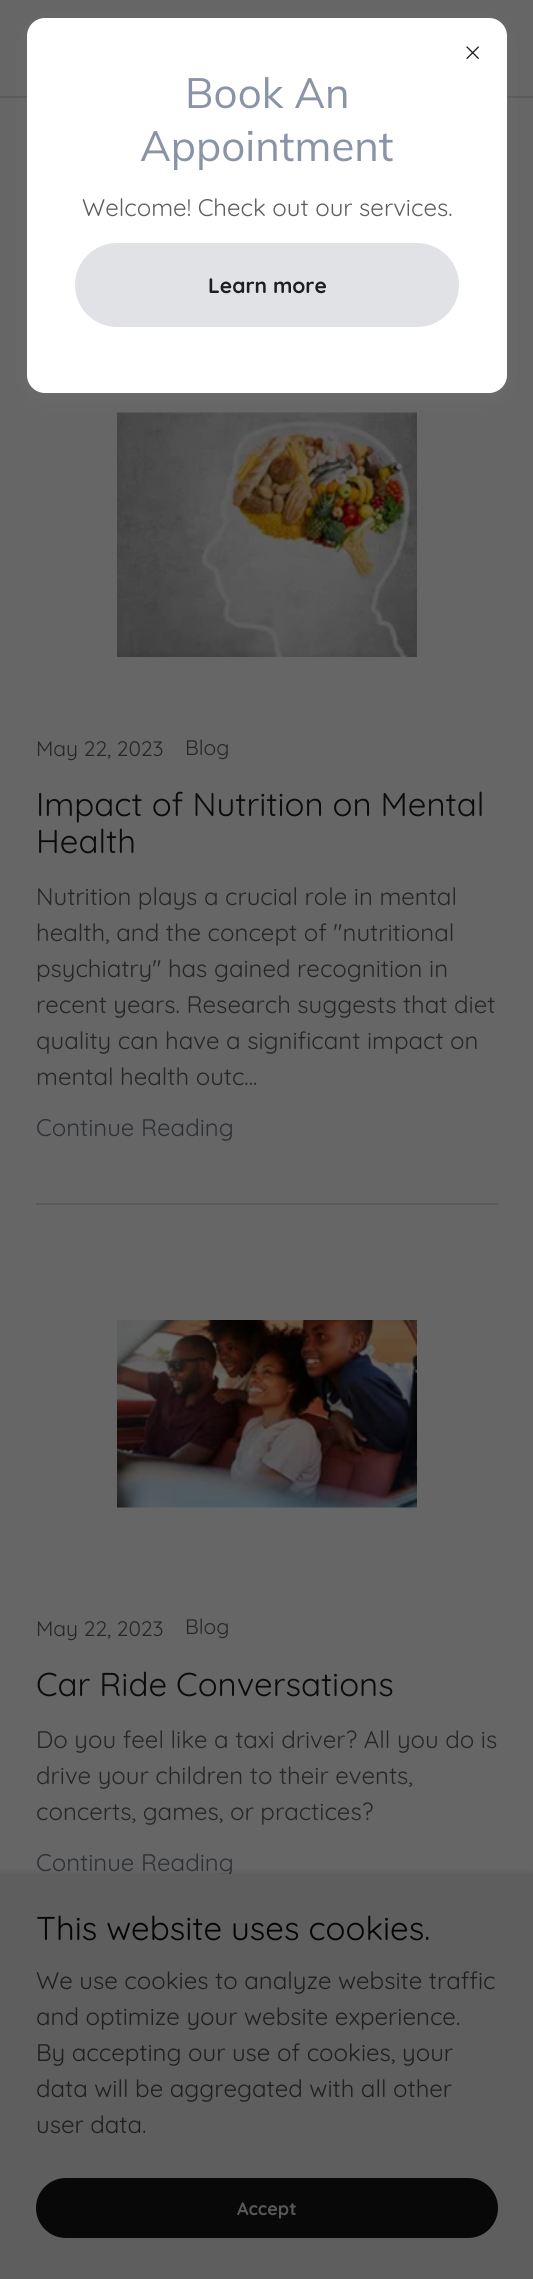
import math
import cairo

surface = cairo.ImageSurface(cairo.FORMAT_RGB24, 533, 2279)
ctx = cairo.Context(surface)
options = cairo.FontOptions()
options.set_hint_metrics(cairo.HINT_METRICS_OFF)
options.set_hint_style(cairo.HINT_STYLE_NONE)
ctx.set_font_options(options)
ctx.set_miter_limit(4)


def round_rect(x, y, w, h, r):
    ctx.new_sub_path()
    for i, (u, v) in enumerate([(x + w - r, y + h - r), (x + r, y + h - r), (x + r, y + r), (x + w - r, y + r)]):
        ctx.arc(u, v, r, i * math.pi / 2, (i + 1) * math.pi / 2)
    ctx.close_path()


def shadow(x, y, w, h, r, blur, alpha):
    ctx.push_group_with_content(cairo.CONTENT_ALPHA)
    ctx.set_operator(cairo.OPERATOR_SOURCE)
    for i in range(15, -16, -2):
        e = blur * i / 6
        if min(w, h) + 2 * e > 0:
            ctx.set_source_rgba(0, 0, 0, alpha * math.erfc((i - 1) / 8.5) / 2)
            round_rect(x - e, y - e, w + 2 * e, h + 2 * e, max(0, min(r + e + blur * .6, min(w, h) / 2 + e)))
            ctx.fill()
    ctx.mask(ctx.pop_group())


def picture(path, x, y, w, h):
    ctx.save()
    ctx.set_source_surface(cairo.ImageSurface.create_from_png(path), x, y)
    ctx.rectangle(x, y, w, h)
    ctx.fill()
    ctx.restore()


ctx.set_source_rgb(0.4, 0.4, 0.4)
ctx.paint()
ctx.set_source_rgb(0.353, 0.353, 0.353)
ctx.rectangle(0, 96, 533, 2)
ctx.fill()
picture("img2.png", 117, 412, 300, 245)
ctx.set_source_rgb(0.459, 0.459, 0.459)
shadow(27, 24, 480, 375, 18, 9, 0.4)
ctx.set_source_rgb(1, 1, 1)
round_rect(27, 18, 480, 375, 18)
ctx.fill()
picture("img1.png", 466, 46, 13, 13)
ctx.select_font_face("Muli")
ctx.set_font_size(42)
ctx.set_source_rgb(0.545, 0.58, 0.651)
ctx.move_to(185, 108)
ctx.show_text("Book An")
ctx.move_to(140, 161)
ctx.show_text("Appointment")
ctx.select_font_face("Quicksand")
ctx.set_font_size(24)
ctx.set_source_rgb(0.369, 0.369, 0.369)
ctx.move_to(82, 216)
ctx.show_text("Welcome! Check out our services.")
ctx.set_source_rgb(0.882, 0.886, 0.898)
round_rect(75, 243, 384, 84, 42)
ctx.fill()
ctx.select_font_face("Quicksand", cairo.FONT_SLANT_NORMAL, cairo.FONT_WEIGHT_BOLD)
ctx.set_font_size(21)
ctx.set_source_rgb(0.122, 0.122, 0.125)
ctx.move_to(208, 293)
ctx.show_text("Learn more")
ctx.set_source_rgb(0.353, 0.353, 0.353)
ctx.rectangle(36, 1203, 462, 2)
ctx.fill()
ctx.select_font_face("Quicksand")
ctx.set_source_rgb(0.149, 0.149, 0.149)
ctx.move_to(36, 756)
ctx.show_text("May 22, 2023")
ctx.move_to(185, 755)
ctx.show_text("Blog")
ctx.set_font_size(33)
ctx.set_source_rgb(0.043, 0.043, 0.043)
ctx.move_to(36, 816)
ctx.show_text("Impact of Nutrition on Mental")
ctx.move_to(36, 853)
ctx.show_text("Health")
ctx.set_font_size(24)
ctx.set_source_rgb(0.149, 0.149, 0.149)
ctx.move_to(36, 905)
ctx.show_text("Nutrition plays a crucial role in mental")
ctx.move_to(36, 941)
ctx.show_text("health, and the concept of \"nutritional")
ctx.move_to(36, 977)
ctx.show_text("psychiatry\" has gained recognition in")
ctx.move_to(36, 1013)
ctx.show_text("recent years. Research suggests that diet")
ctx.move_to(36, 1049)
ctx.show_text("quality can have a significant impact on")
ctx.move_to(36, 1085)
ctx.show_text("mental health outc...")
ctx.set_source_rgb(0.173, 0.184, 0.208)
ctx.move_to(36, 1136)
ctx.show_text("Continue Reading")
picture("img3.png", 117, 1320, 300, 188)
ctx.set_font_size(21)
ctx.set_source_rgb(0.149, 0.149, 0.149)
ctx.move_to(36, 1636)
ctx.show_text("May 22, 2023")
ctx.move_to(185, 1634)
ctx.show_text("Blog")
ctx.set_font_size(33)
ctx.set_source_rgb(0.043, 0.043, 0.043)
ctx.move_to(36, 1696)
ctx.show_text("Car Ride Conversations")
ctx.set_font_size(24)
ctx.set_source_rgb(0.149, 0.149, 0.149)
ctx.move_to(36, 1748)
ctx.show_text("Do you feel like a taxi driver? All you do is")
ctx.move_to(36, 1784)
ctx.show_text("drive your children to their events,")
ctx.move_to(36, 1820)
ctx.show_text("concerts, games, or practices?")
ctx.set_source_rgb(0.173, 0.184, 0.208)
ctx.move_to(36, 1871)
ctx.show_text("Continue Reading")
ctx.set_source_rgb(0, 0, 0)
shadow(0, 1877, 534, 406, 0, 4.5, 0.3)
ctx.set_source_rgb(0.369, 0.369, 0.373)
ctx.rectangle(0, 1874, 533, 405)
ctx.fill()
ctx.set_font_size(33)
ctx.set_source_rgb(0.016, 0.016, 0.016)
ctx.move_to(36, 1940)
ctx.show_text("This website uses cookies.")
ctx.set_font_size(24)
ctx.set_source_rgb(0.122, 0.122, 0.125)
ctx.move_to(36, 1989)
ctx.show_text("We use cookies to analyze website traffic")
ctx.move_to(36, 2025)
ctx.show_text("and optimize your website experience.")
ctx.move_to(36, 2061)
ctx.show_text("By accepting our use of cookies, your")
ctx.move_to(36, 2097)
ctx.show_text("data will be aggregated with all other")
ctx.move_to(36, 2133)
ctx.show_text("user data.")
ctx.set_source_rgb(0.035, 0.035, 0.035)
round_rect(36, 2178, 462, 60, 30)
ctx.fill()
ctx.select_font_face("Quicksand", cairo.FONT_SLANT_NORMAL, cairo.FONT_WEIGHT_BOLD)
ctx.set_font_size(18)
ctx.set_source_rgb(0.345, 0.345, 0.345)
ctx.move_to(237, 2215)
ctx.show_text("Accept")
surface.write_to_png("page.png")
